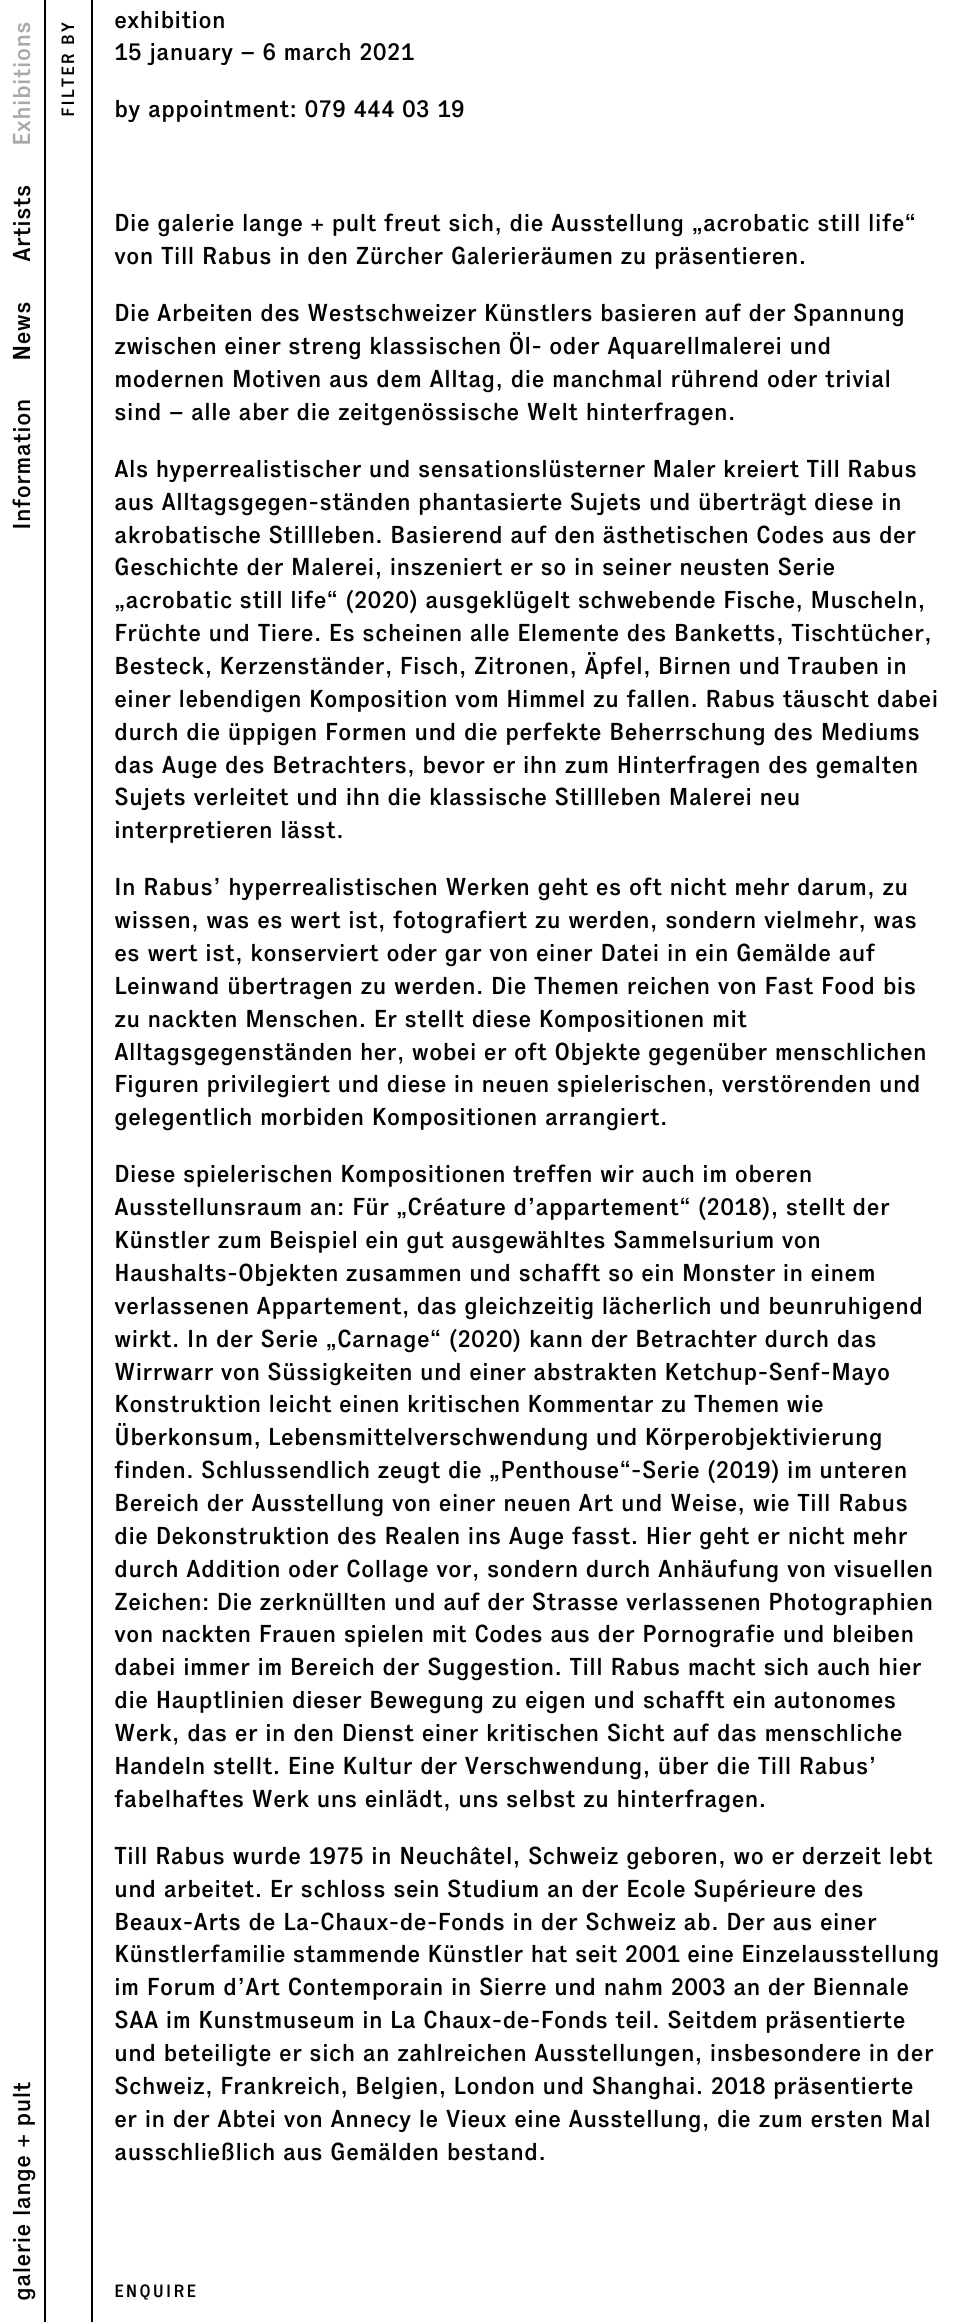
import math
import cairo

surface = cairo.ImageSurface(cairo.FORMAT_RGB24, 961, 2322)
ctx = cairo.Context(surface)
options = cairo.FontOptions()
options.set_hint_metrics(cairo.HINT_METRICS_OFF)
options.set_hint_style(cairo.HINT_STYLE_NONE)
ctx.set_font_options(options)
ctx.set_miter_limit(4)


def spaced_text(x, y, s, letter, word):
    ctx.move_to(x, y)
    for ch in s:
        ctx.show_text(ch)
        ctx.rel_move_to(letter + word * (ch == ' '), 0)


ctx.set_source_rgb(1, 1, 1)
ctx.paint()
ctx.set_source_rgb(0, 0, 0)
ctx.rectangle(44, 0, 2, 2322)
ctx.fill()
ctx.select_font_face("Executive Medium")
ctx.set_font_size(24.1)
ctx.set_source_rgb(0.663, 0.663, 0.663)
ctx.save()
ctx.translate(30, 146)
ctx.rotate(-90 * math.pi / 180)
ctx.move_to(0, 0)
ctx.show_text("Exhibitions")
ctx.restore()
ctx.set_source_rgb(0, 0, 0)
ctx.save()
ctx.translate(30, 262)
ctx.rotate(-90 * math.pi / 180)
ctx.move_to(0, 0)
ctx.show_text("Artists")
ctx.restore()
ctx.save()
ctx.translate(30, 361)
ctx.rotate(-90 * math.pi / 180)
ctx.move_to(0, 0)
ctx.show_text("News")
ctx.restore()
ctx.save()
ctx.translate(30, 530)
ctx.rotate(-90 * math.pi / 180)
ctx.move_to(0, 0)
ctx.show_text("Information")
ctx.restore()
ctx.save()
ctx.translate(30, 2301)
ctx.rotate(-90 * math.pi / 180)
ctx.move_to(0, 0)
ctx.show_text("galerie lange + pult")
ctx.restore()
ctx.set_font_size(17.5)
ctx.save()
ctx.translate(74, 117)
ctx.rotate(-90 * math.pi / 180)
spaced_text(0, 0, "FILTER BY", 1.75, -1)
ctx.restore()
ctx.rectangle(91, 0, 2, 2322)
ctx.fill()
ctx.set_font_size(24.1)
ctx.move_to(114, 28)
ctx.show_text("exhibition")
ctx.move_to(114, 60)
ctx.show_text("15 january – 6 march 2021")
ctx.move_to(114, 117)
ctx.show_text("by appointment: 079 444 03 19")
ctx.move_to(114, 231)
ctx.show_text("Die galerie lange + pult freut sich, die Ausstellung „acrobatic still life“")
ctx.move_to(114, 264)
ctx.show_text("von Till Rabus in den Zürcher Galerieräumen zu präsentieren.")
spaced_text(114, 321, "Die Arbeiten des Westschweizer Künstlers basieren auf der Spannung", 0, -0.25)
spaced_text(114, 354, "zwischen einer streng klassischen Öl- oder Aquarellmalerei und", 0, -0.25)
ctx.move_to(114, 387)
ctx.show_text("modernen Motiven aus dem Alltag, die manchmal rührend oder trivial")
ctx.move_to(114, 420)
ctx.show_text("sind – alle aber die zeitgenössische Welt hinterfragen.")
spaced_text(114, 477, "Als hyperrealistischer und sensationslüsterner Maler kreiert Till Rabus", 0, -0.25)
spaced_text(114, 510, "aus Alltagsgegen-ständen phantasierte Sujets und überträgt diese in", 0, -0.25)
spaced_text(114, 543, "akrobatische Stillleben. Basierend auf den ästhetischen Codes aus der", 0, -0.25)
ctx.move_to(114, 575)
ctx.show_text("Geschichte der Malerei, inszeniert er so in seiner neusten Serie")
spaced_text(114, 608, "„acrobatic still life“ (2020) ausgeklügelt schwebende Fische, Muscheln,", 0, -0.25)
spaced_text(114, 641, "Früchte und Tiere. Es scheinen alle Elemente des Banketts, Tischtücher,", 0, -0.1)
spaced_text(114, 674, "Besteck, Kerzenständer, Fisch, Zitronen, Äpfel, Birnen und Trauben in", 0, -0.25)
spaced_text(114, 707, "einer lebendigen Komposition vom Himmel zu fallen. Rabus täuscht dabei", 0, -0.1)
ctx.move_to(114, 740)
ctx.show_text("durch die üppigen Formen und die perfekte Beherrschung des Mediums")
ctx.move_to(114, 773)
ctx.show_text("das Auge des Betrachters, bevor er ihn zum Hinterfragen des gemalten")
ctx.move_to(114, 805)
ctx.show_text("Sujets verleitet und ihn die klassische Stillleben Malerei neu")
ctx.move_to(114, 838)
ctx.show_text("interpretieren lässt.")
ctx.move_to(114, 895)
ctx.show_text("In Rabus’ hyperrealistischen Werken geht es oft nicht mehr darum, zu")
ctx.move_to(114, 928)
ctx.show_text("wissen, was es wert ist, fotografiert zu werden, sondern vielmehr, was")
ctx.move_to(114, 961)
ctx.show_text("es wert ist, konserviert oder gar von einer Datei in ein Gemälde auf")
ctx.move_to(114, 994)
ctx.show_text("Leinwand übertragen zu werden. Die Themen reichen von Fast Food bis")
spaced_text(114, 1027, "zu nackten Menschen. Er stellt diese Kompositionen mit", 0, -0.1)
spaced_text(114, 1060, "Alltagsgegenständen her, wobei er oft Objekte gegenüber menschlichen", 0, -0.25)
spaced_text(114, 1092, "Figuren privilegiert und diese in neuen spielerischen, verstörenden und", 0, -0.25)
ctx.move_to(114, 1125)
ctx.show_text("gelegentlich morbiden Kompositionen arrangiert.")
spaced_text(114, 1182, "Diese spielerischen Kompositionen treffen wir auch im oberen", 0, -0.25)
ctx.move_to(114, 1215)
ctx.show_text("Ausstellunsraum an: Für")
spaced_text(396, 1215, "„Créature d’appartement“ (2018), stellt der", 0, -0.25)
spaced_text(114, 1248, "Künstler zum Beispiel ein gut ausgewähltes Sammelsurium von", 0, -0.25)
spaced_text(114, 1281, "Haushalts-Objekten zusammen und schafft so ein Monster in einem", 0, -0.25)
spaced_text(114, 1314, "verlassenen Appartement, das gleichzeitig lächerlich und beunruhigend", 0, -0.25)
ctx.move_to(114, 1347)
ctx.show_text("wirkt. In der Serie „Carnage“ (2020) kann der Betrachter durch das")
spaced_text(114, 1380, "Wirrwarr von Süssigkeiten und einer abstrakten Ketchup-Senf-Mayo", 0, -0.25)
spaced_text(114, 1412, "Konstruktion leicht einen kritischen Kommentar zu Themen wie", 0, -0.25)
spaced_text(114, 1445, "Überkonsum, Lebensmittelverschwendung und Körperobjektivierung", 0, -0.5)
spaced_text(114, 1478, "finden. Schlussendlich zeugt die „Penthouse“-Serie (2019) im unteren", 0, -0.25)
ctx.move_to(114, 1511)
ctx.show_text("Bereich der Ausstellung von einer neuen Art und Weise, wie Till Rabus")
ctx.move_to(114, 1544)
ctx.show_text("die Dekonstruktion des Realen ins Auge fasst. Hier geht er nicht mehr")
ctx.move_to(114, 1577)
ctx.show_text("durch Addition oder Collage vor, sondern durch Anhäufung von visuellen")
spaced_text(114, 1610, "Zeichen: Die zerknüllten und auf der Strasse verlassenen Photographien", 0, -0.25)
ctx.move_to(114, 1642)
ctx.show_text("von nackten Frauen spielen mit Codes aus der Pornografie und bleiben")
ctx.move_to(114, 1675)
ctx.show_text("dabei immer im Bereich der Suggestion. Till Rabus macht sich auch hier")
ctx.move_to(114, 1708)
ctx.show_text("die Hauptlinien dieser Bewegung zu eigen und schafft ein autonomes")
ctx.move_to(114, 1741)
ctx.show_text("Werk, das er in den Dienst einer kritischen Sicht auf das menschliche")
ctx.move_to(114, 1774)
ctx.show_text("Handeln stellt. Eine Kultur der Verschwendung, über die Till Rabus’")
spaced_text(114, 1807, "fabelhaftes Werk uns einlädt, uns selbst zu hinterfragen.", 0, -0.1)
ctx.move_to(114, 1864)
ctx.show_text("Till Rabus wurde 1975 in Neuchâtel, Schweiz geboren, wo er derzeit lebt")
ctx.move_to(114, 1897)
ctx.show_text("und arbeitet. Er schloss sein Studium an der Ecole Supérieure des")
ctx.move_to(114, 1930)
ctx.show_text("Beaux-Arts de La-Chaux-de-Fonds in der Schweiz ab. Der aus einer")
spaced_text(114, 1962, "Künstlerfamilie stammende Künstler hat seit 2001 eine Einzelausstellung", 0, -0.25)
ctx.move_to(114, 1995)
ctx.show_text("im Forum d’Art Contemporain in Sierre und nahm 2003 an der Biennale")
spaced_text(114, 2028, "SAA im Kunstmuseum in La Chaux-de-Fonds teil. Seitdem präsentierte", 0, -0.25)
spaced_text(114, 2061, "und beteiligte er sich an zahlreichen Ausstellungen, insbesondere in der", 0, -0.1)
spaced_text(114, 2094, "Schweiz, Frankreich, Belgien, London und Shanghai. 2018 präsentierte", 0, -0.25)
ctx.move_to(114, 2127)
ctx.show_text("er in der Abtei von Annecy le Vieux eine Ausstellung, die zum ersten Mal")
ctx.move_to(114, 2160)
ctx.show_text("ausschließlich aus Gemälden bestand.")
ctx.set_font_size(17.5)
spaced_text(114, 2297, "ENQUIRE", 1.75, 0)
surface.write_to_png("page.png")
